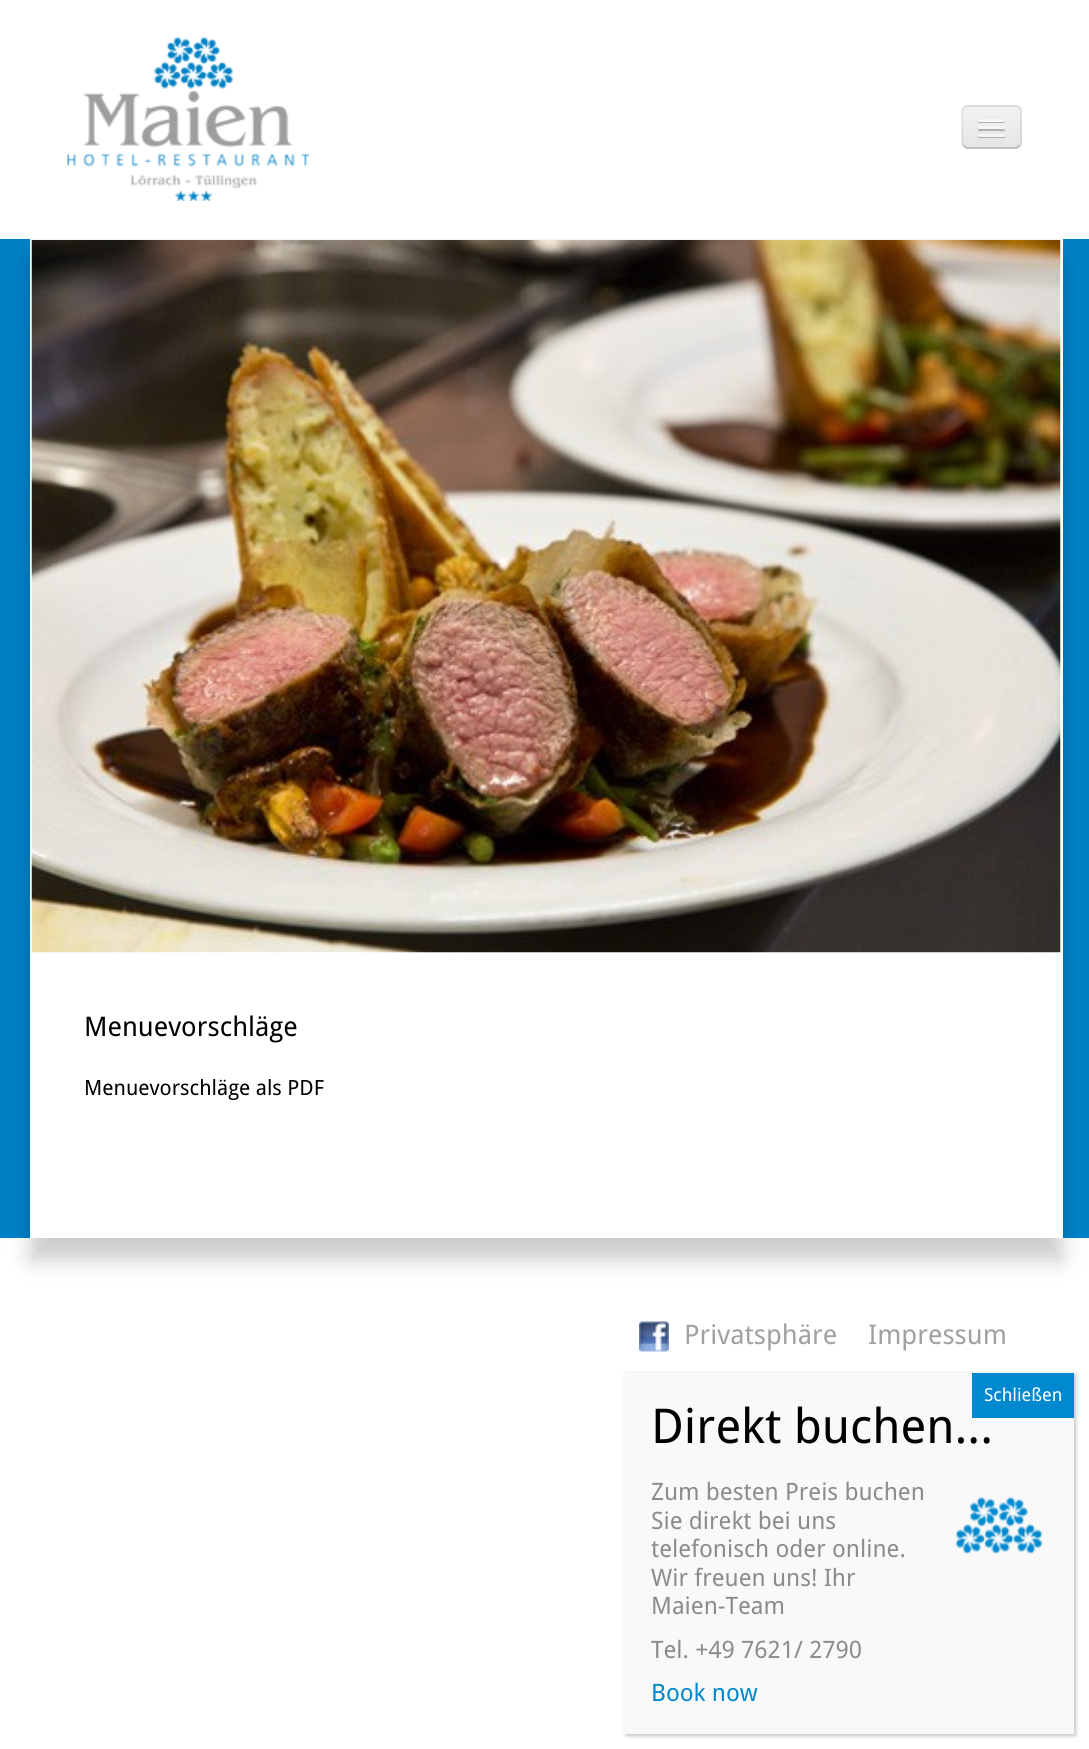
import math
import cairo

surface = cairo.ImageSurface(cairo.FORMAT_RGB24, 1089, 1749)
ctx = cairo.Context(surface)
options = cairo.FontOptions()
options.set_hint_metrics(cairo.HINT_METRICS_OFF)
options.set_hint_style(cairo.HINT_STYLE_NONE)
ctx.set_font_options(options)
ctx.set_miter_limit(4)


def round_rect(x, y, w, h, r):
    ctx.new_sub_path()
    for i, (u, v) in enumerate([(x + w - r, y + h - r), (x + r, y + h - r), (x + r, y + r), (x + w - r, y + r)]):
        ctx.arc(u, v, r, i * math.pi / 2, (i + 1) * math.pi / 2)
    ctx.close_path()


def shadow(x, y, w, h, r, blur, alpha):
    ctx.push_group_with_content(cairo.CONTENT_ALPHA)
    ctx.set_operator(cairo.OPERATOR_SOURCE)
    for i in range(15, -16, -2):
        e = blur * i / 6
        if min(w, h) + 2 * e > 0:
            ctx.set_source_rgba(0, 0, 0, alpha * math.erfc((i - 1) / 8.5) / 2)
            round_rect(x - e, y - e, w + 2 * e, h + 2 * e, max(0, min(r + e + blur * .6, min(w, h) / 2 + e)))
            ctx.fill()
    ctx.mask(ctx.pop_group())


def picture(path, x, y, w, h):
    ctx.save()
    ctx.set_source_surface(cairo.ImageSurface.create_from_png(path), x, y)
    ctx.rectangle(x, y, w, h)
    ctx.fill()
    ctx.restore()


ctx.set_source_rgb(1, 1, 1)
ctx.paint()
picture("img1.png", 67, 37, 242, 164)
ctx.set_source_rgb(0.929, 0.929, 0.929)
round_rect(962, 105, 60, 44, 6)
ctx.fill()
ctx.save()
round_rect(962, 105, 60, 44, 6)
ctx.clip()
gradient = cairo.LinearGradient(992, 107, 992, 147)
gradient.add_color_stop_rgba(0, 0.949, 0.949, 0.949, 1)
gradient.add_color_stop_rgba(1, 0.898, 0.898, 0.898, 1)
ctx.set_source(gradient)
ctx.rectangle(962, 107, 60, 40)
ctx.fill()
ctx.restore()
ctx.new_path()
ctx.move_to(1019, 146)
ctx.curve_to(1018, 147, 1017, 148, 1015.5, 148)
ctx.line_to(967.5, 148)
ctx.curve_to(966, 148, 965, 147, 964, 146)
ctx.set_source_rgba(0, 0, 0, 0.25)
ctx.set_line_width(1.5)
ctx.stroke()
ctx.new_path()
ctx.move_to(964, 146)
ctx.curve_to(963, 145, 962, 144, 962, 142.5)
ctx.line_to(962, 111)
ctx.curve_to(962, 109.5, 963, 108.5, 964, 107.5)
ctx.curve_to(965, 106.5, 966, 106, 967.5, 106)
ctx.line_to(1015.5, 106)
ctx.curve_to(1017, 106, 1018, 106.5, 1019, 107.5)
ctx.curve_to(1020, 108.5, 1021, 109.5, 1021, 111)
ctx.line_to(1021, 142.5)
ctx.curve_to(1021, 144, 1020, 145, 1019, 146)
ctx.set_source_rgba(0, 0, 0, 0.1)
ctx.stroke()
ctx.set_source_rgb(0.698, 0.698, 0.698)
ctx.new_path()
ctx.move_to(978, 120.5)
ctx.curve_to(976.5, 124, 983.5, 123, 983.5, 123)
ctx.line_to(999.5, 123)
ctx.curve_to(999.5, 123, 1006.5, 124, 1005, 120.5)
ctx.curve_to(1004.5, 121, 1004, 121.5, 1003.5, 121.5)
ctx.line_to(979.5, 121.5)
ctx.curve_to(979, 121.5, 978.5, 121, 978, 120.5)
ctx.close_path()
ctx.fill()
ctx.set_source_rgb(0.961, 0.961, 0.961)
round_rect(978, 119, 27, 3, 1.5)
ctx.fill()
ctx.set_source_rgb(0.69, 0.69, 0.69)
ctx.new_path()
ctx.move_to(978.5, 128.5)
ctx.line_to(978, 130)
ctx.curve_to(978.5, 132, 983, 131, 983.5, 131)
ctx.line_to(999.5, 131)
ctx.curve_to(1000, 131, 1004.5, 132, 1005, 130)
ctx.line_to(1004.5, 128.5)
ctx.line_to(1003.5, 129)
ctx.line_to(979.5, 129)
ctx.close_path()
ctx.fill()
ctx.set_source_rgb(0.961, 0.961, 0.961)
round_rect(978, 126, 27, 3, 1.5)
ctx.fill()
ctx.set_source_rgb(0.682, 0.682, 0.682)
ctx.new_path()
ctx.move_to(978, 136)
ctx.curve_to(976.5, 139, 983.5, 138, 983.5, 138)
ctx.line_to(999.5, 138)
ctx.curve_to(999.5, 138, 1006.5, 139, 1005, 136)
ctx.curve_to(1004.5, 136, 1004, 136.5, 1003.5, 136.5)
ctx.line_to(979.5, 136.5)
ctx.curve_to(979, 136.5, 978.5, 136, 978, 136)
ctx.close_path()
ctx.fill()
ctx.set_source_rgb(0.961, 0.961, 0.961)
round_rect(978, 134, 27, 3, 1.5)
ctx.fill()
ctx.set_source_rgb(0, 0.506, 0.776)
ctx.rectangle(0, 239, 1089, 999)
ctx.fill()
ctx.set_source_rgb(0, 0, 0)
shadow(30, 261, 1032, 999, 0, 11, 0.2)
ctx.set_source_rgb(1, 1, 1)
ctx.rectangle(32, 241, 1029, 997)
ctx.fill()
ctx.set_source_rgb(0.961, 0.961, 0.961)
ctx.rectangle(30, 239, 1032, 2)
ctx.fill()
ctx.set_source_rgb(1, 1, 1)
ctx.rectangle(1061, 239, 2, 999)
ctx.fill()
ctx.rectangle(30, 239, 2, 999)
ctx.fill()
picture("img2.png", 31, 240, 1030, 713)
ctx.select_font_face("Droid Sans")
ctx.set_font_size(27)
ctx.set_source_rgb(0, 0, 0)
ctx.move_to(84, 1036)
ctx.show_text("Menuevorschläge")
ctx.set_font_size(21)
ctx.move_to(84, 1095)
ctx.show_text("Menuevorschläge als PDF")
picture("img3.png", 639, 1321, 30, 31)
ctx.set_font_size(27)
ctx.set_source_rgb(0.624, 0.631, 0.635)
ctx.move_to(684, 1344)
ctx.show_text("Privatsphäre")
ctx.move_to(868, 1344)
ctx.show_text("Impressum")
ctx.set_source_rgb(0.008, 0.008, 0.008)
shadow(626, 1374, 450, 362, 0, 2, 0.23)
ctx.set_source_rgb(0.976, 0.976, 0.976)
ctx.rectangle(624, 1373, 450, 361)
ctx.fill()
ctx.set_font_size(48)
ctx.set_source_rgb(0, 0, 0)
ctx.move_to(651, 1443)
ctx.show_text("Direkt buchen...")
ctx.set_source_rgb(0.004, 0.537, 0.816)
ctx.rectangle(972, 1373, 102, 45)
ctx.fill()
ctx.set_font_size(18)
ctx.set_source_rgb(1, 1, 1)
ctx.move_to(984, 1401)
ctx.show_text("Schließen")
ctx.set_font_size(24)
ctx.set_source_rgb(0.549, 0.549, 0.549)
ctx.move_to(651, 1500)
ctx.show_text("Zum besten Preis buchen")
ctx.move_to(651, 1529)
ctx.show_text("Sie direkt bei uns")
picture("img4.png", 955, 1496, 88, 58)
ctx.move_to(651, 1557)
ctx.show_text("telefonisch oder online.")
ctx.move_to(651, 1586)
ctx.show_text("Wir freuen uns! Ihr")
ctx.move_to(651, 1614)
ctx.show_text("Maien-Team")
ctx.move_to(651, 1658)
ctx.show_text("Tel. +49 7621/ 2790")
ctx.set_source_rgb(0, 0.533, 0.8)
ctx.move_to(651, 1701)
ctx.show_text("Book now")
surface.write_to_png("page.png")
